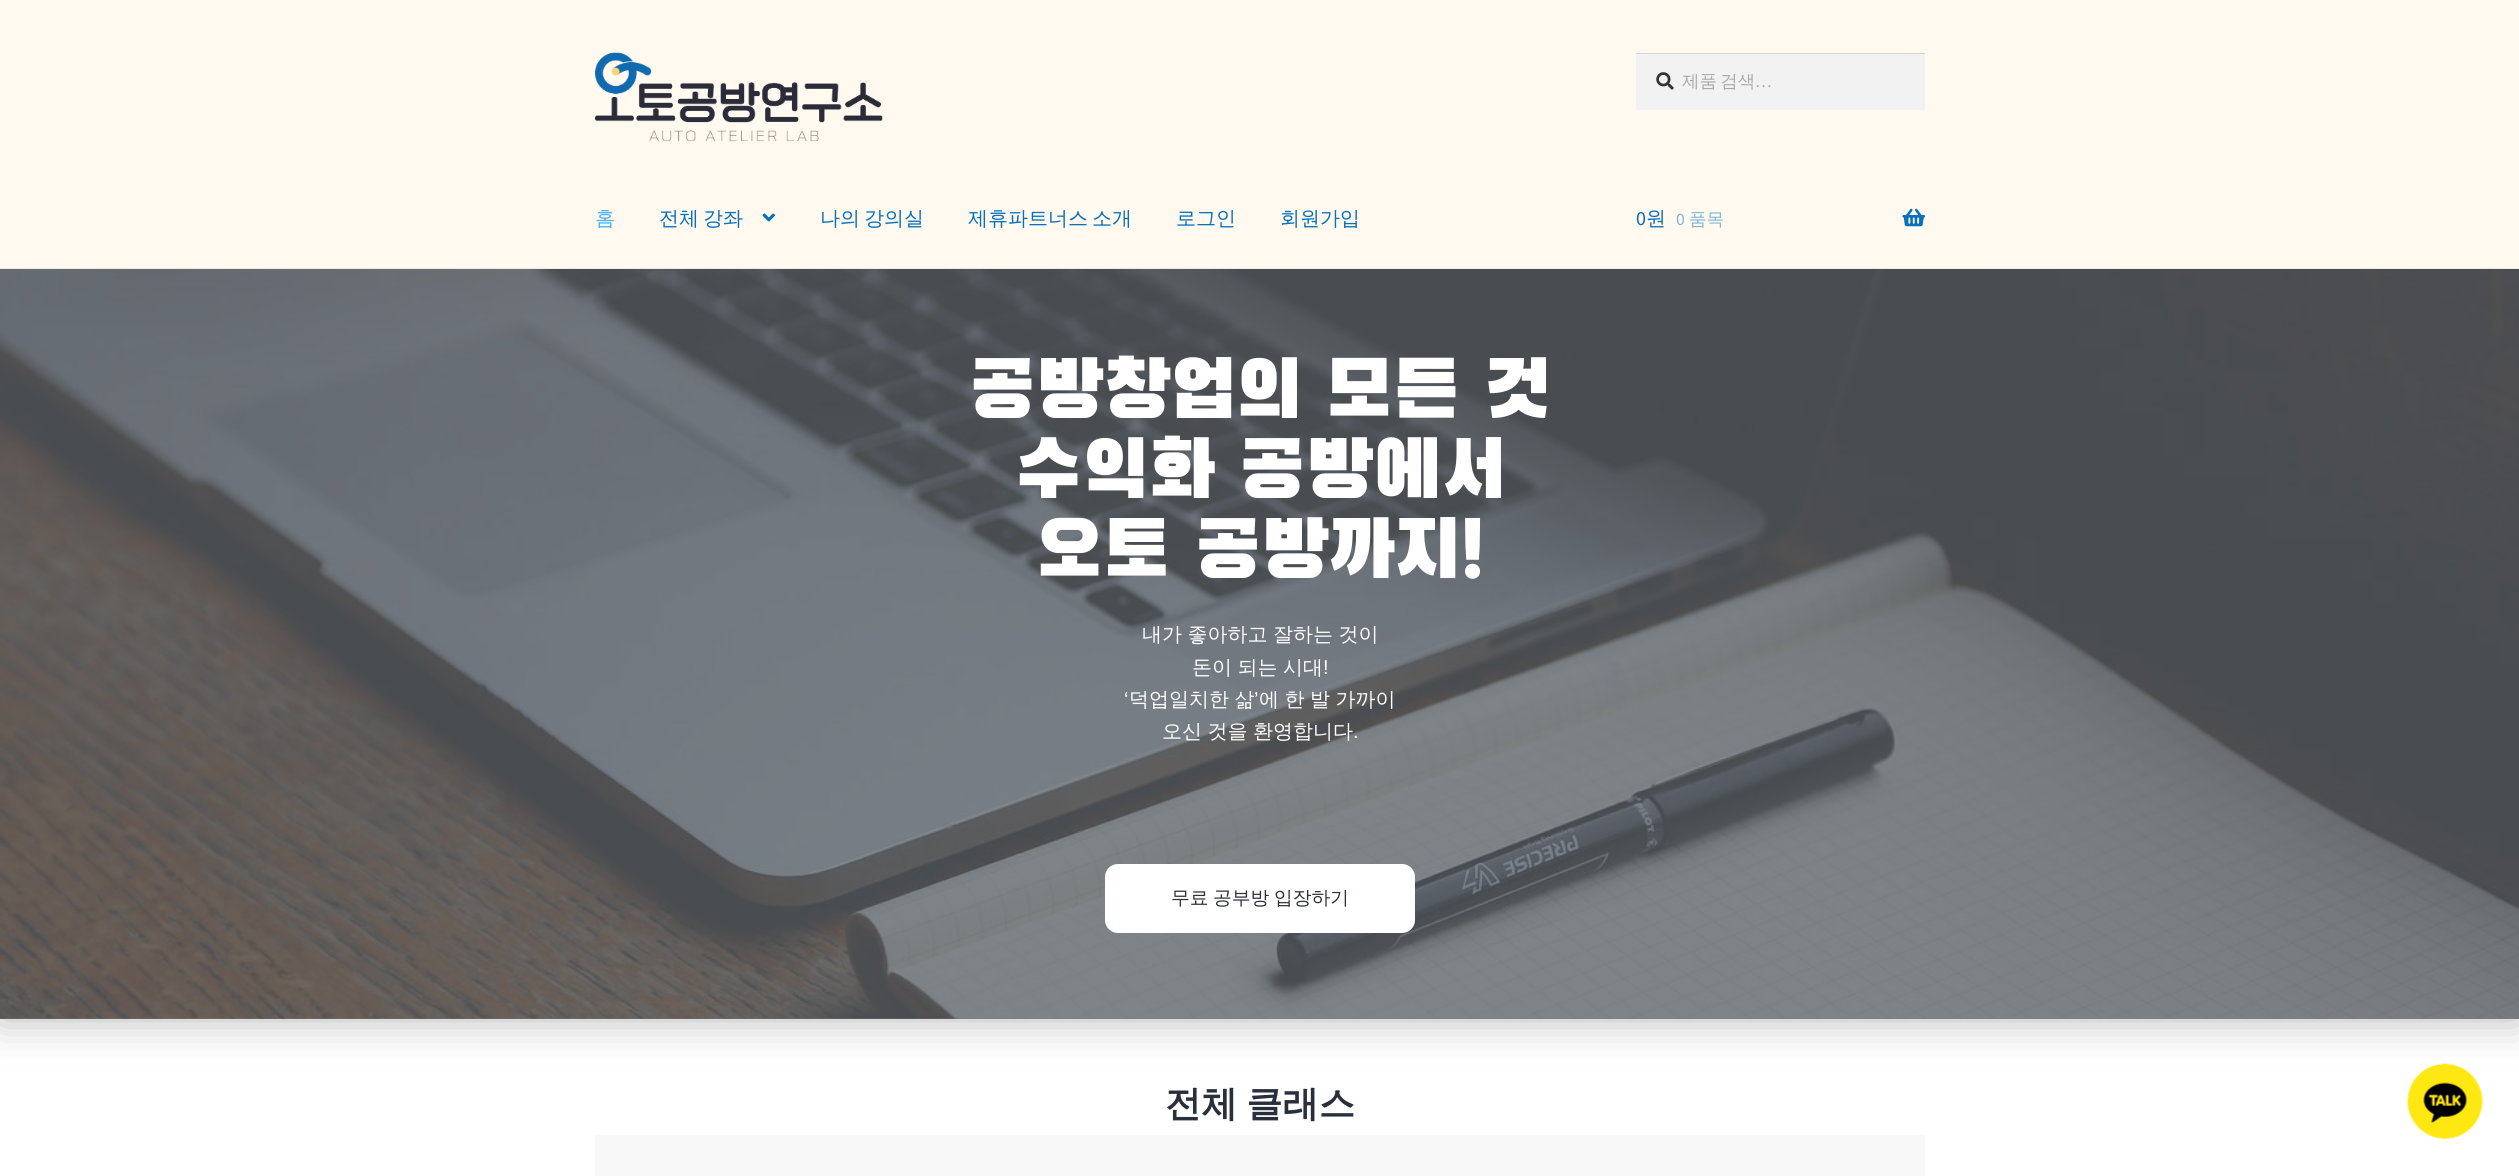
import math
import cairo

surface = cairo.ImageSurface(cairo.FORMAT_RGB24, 2519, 1176)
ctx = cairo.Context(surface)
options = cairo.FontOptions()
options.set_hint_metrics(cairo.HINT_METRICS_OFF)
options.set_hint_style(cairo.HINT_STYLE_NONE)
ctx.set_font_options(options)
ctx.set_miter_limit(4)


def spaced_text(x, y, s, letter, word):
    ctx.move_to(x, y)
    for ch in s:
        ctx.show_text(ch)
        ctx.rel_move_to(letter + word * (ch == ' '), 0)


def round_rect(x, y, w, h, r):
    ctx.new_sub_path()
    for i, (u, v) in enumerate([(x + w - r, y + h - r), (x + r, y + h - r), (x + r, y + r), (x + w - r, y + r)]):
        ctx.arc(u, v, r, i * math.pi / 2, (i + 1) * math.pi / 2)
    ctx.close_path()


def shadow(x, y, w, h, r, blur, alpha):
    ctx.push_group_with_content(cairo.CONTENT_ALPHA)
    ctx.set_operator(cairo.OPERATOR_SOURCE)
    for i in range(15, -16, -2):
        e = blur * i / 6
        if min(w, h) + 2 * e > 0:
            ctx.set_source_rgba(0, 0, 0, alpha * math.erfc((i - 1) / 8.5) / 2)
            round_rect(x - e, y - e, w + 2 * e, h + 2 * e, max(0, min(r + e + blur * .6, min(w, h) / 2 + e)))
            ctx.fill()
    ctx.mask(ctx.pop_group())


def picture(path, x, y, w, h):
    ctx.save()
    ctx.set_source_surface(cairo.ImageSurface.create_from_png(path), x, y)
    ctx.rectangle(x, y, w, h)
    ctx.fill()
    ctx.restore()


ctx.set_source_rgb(1, 1, 1)
ctx.paint()
ctx.set_source_rgb(0.42, 0.42, 0.42)
shadow(0, 269, 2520, 750, 0, 21, 0.5)
ctx.set_source_rgb(1, 0.976, 0.937)
ctx.rectangle(0, 0, 2519, 268)
ctx.fill()
ctx.set_source_rgb(0.941, 0.918, 0.878)
ctx.rectangle(0, 268, 2519, 1)
ctx.fill()
picture("img1.png", 595, 52, 288, 90)
ctx.set_source_rgb(0.949, 0.949, 0.949)
ctx.rectangle(1636, 54, 289, 56)
ctx.fill()
picture("img2.png", 1656, 72, 18, 18)
ctx.set_source_rgb(0.831, 0.831, 0.831)
ctx.rectangle(1636, 53, 289, 1)
ctx.fill()
ctx.select_font_face("WenQuanYi Zen Hei Medium")
ctx.set_font_size(17.5)
ctx.set_source_rgb(0.667, 0.667, 0.667)
spaced_text(1682, 87, "제품 검색", 0, -2)
ctx.select_font_face("Source Sans Pro")
ctx.move_to(1755, 87)
ctx.show_text("…")
ctx.select_font_face("WenQuanYi Zen Hei Medium")
ctx.set_font_size(20)
ctx.set_source_rgb(0.278, 0.694, 0.988)
ctx.move_to(595, 225)
ctx.show_text("홈")
ctx.set_source_rgb(0.024, 0.439, 0.733)
spaced_text(659, 225, "전체 강좌", 0, -2)
picture("img3.png", 762, 213, 13, 9)
spaced_text(820, 225, "나의 강의실", 0, -2)
spaced_text(968, 225, "제휴파트너스 소개", 0, -2)
ctx.move_to(1176, 225)
ctx.show_text("로그인")
ctx.move_to(1280, 225)
ctx.show_text("회원가입")
ctx.select_font_face("Source Sans Pro")
ctx.move_to(1636, 225)
ctx.show_text("0")
ctx.select_font_face("WenQuanYi Zen Hei Medium")
ctx.move_to(1646, 225)
ctx.show_text("원")
ctx.select_font_face("Source Sans Pro")
ctx.set_font_size(17.5)
ctx.set_source_rgb(0.514, 0.71, 0.835)
ctx.move_to(1676, 225)
ctx.show_text("0")
ctx.select_font_face("WenQuanYi Zen Hei Medium")
ctx.move_to(1689, 225)
ctx.show_text("품목")
picture("img4.png", 1902, 208, 23, 19)
picture("img5.png", 0, 269, 2519, 750)
ctx.set_source_rgba(0.329, 0.349, 0.373, 0.7)
ctx.rectangle(0, 269, 2519, 750)
ctx.fill()
ctx.select_font_face("Black Han Sans Black")
ctx.set_font_size(80)
ctx.set_source_rgb(1, 1, 1)
ctx.move_to(969, 418)
ctx.show_text("공방창업의 모든 것")
ctx.move_to(1015, 498)
ctx.show_text("수익화 공방에서")
ctx.move_to(1036, 578)
ctx.show_text("오토 공방까지!")
ctx.select_font_face("WenQuanYi Zen Hei Medium")
ctx.set_font_size(20)
spaced_text(1142, 641, "내가 좋아하고 잘하는 것이", 0, -0.5)
spaced_text(1192, 674, "돈이 되는 시대", 0, -0.5)
ctx.select_font_face("Liberation Sans")
ctx.move_to(1323, 674)
ctx.show_text("!")
ctx.move_to(1124, 706)
ctx.show_text("‘")
ctx.select_font_face("WenQuanYi Zen Hei Medium")
spaced_text(1129, 706, "덕업일치한 삶", 0, -0.5)
ctx.select_font_face("Liberation Sans")
ctx.move_to(1254, 706)
ctx.show_text("’")
ctx.select_font_face("WenQuanYi Zen Hei Medium")
spaced_text(1259, 706, "에 한 발 가까이", 0, -0.5)
spaced_text(1162, 738, "오신 것을 환영합니다", 0, -0.5)
ctx.select_font_face("Liberation Sans")
ctx.move_to(1353, 738)
ctx.show_text(".")
round_rect(1107, 866, 306, 65, 11)
ctx.fill_preserve()
ctx.set_line_width(4)
ctx.stroke()
ctx.select_font_face("WenQuanYi Zen Hei Medium")
ctx.set_font_size(18.75)
ctx.set_source_rgb(0.161, 0.188, 0.231)
spaced_text(1171, 904, "무료 공부방 입장하기", 0, -1)
ctx.select_font_face("WenQuanYi Zen Hei", cairo.FONT_SLANT_NORMAL, cairo.FONT_WEIGHT_BOLD)
ctx.set_font_size(36.25)
spaced_text(1165, 1116, "전체 클래스", 0, -2)
ctx.set_source_rgb(0.969, 0.969, 0.969)
ctx.rectangle(595, 1135, 1330, 41)
ctx.fill()
picture("img6.png", 2407, 1063, 76, 76)
surface.write_to_png("page.png")
